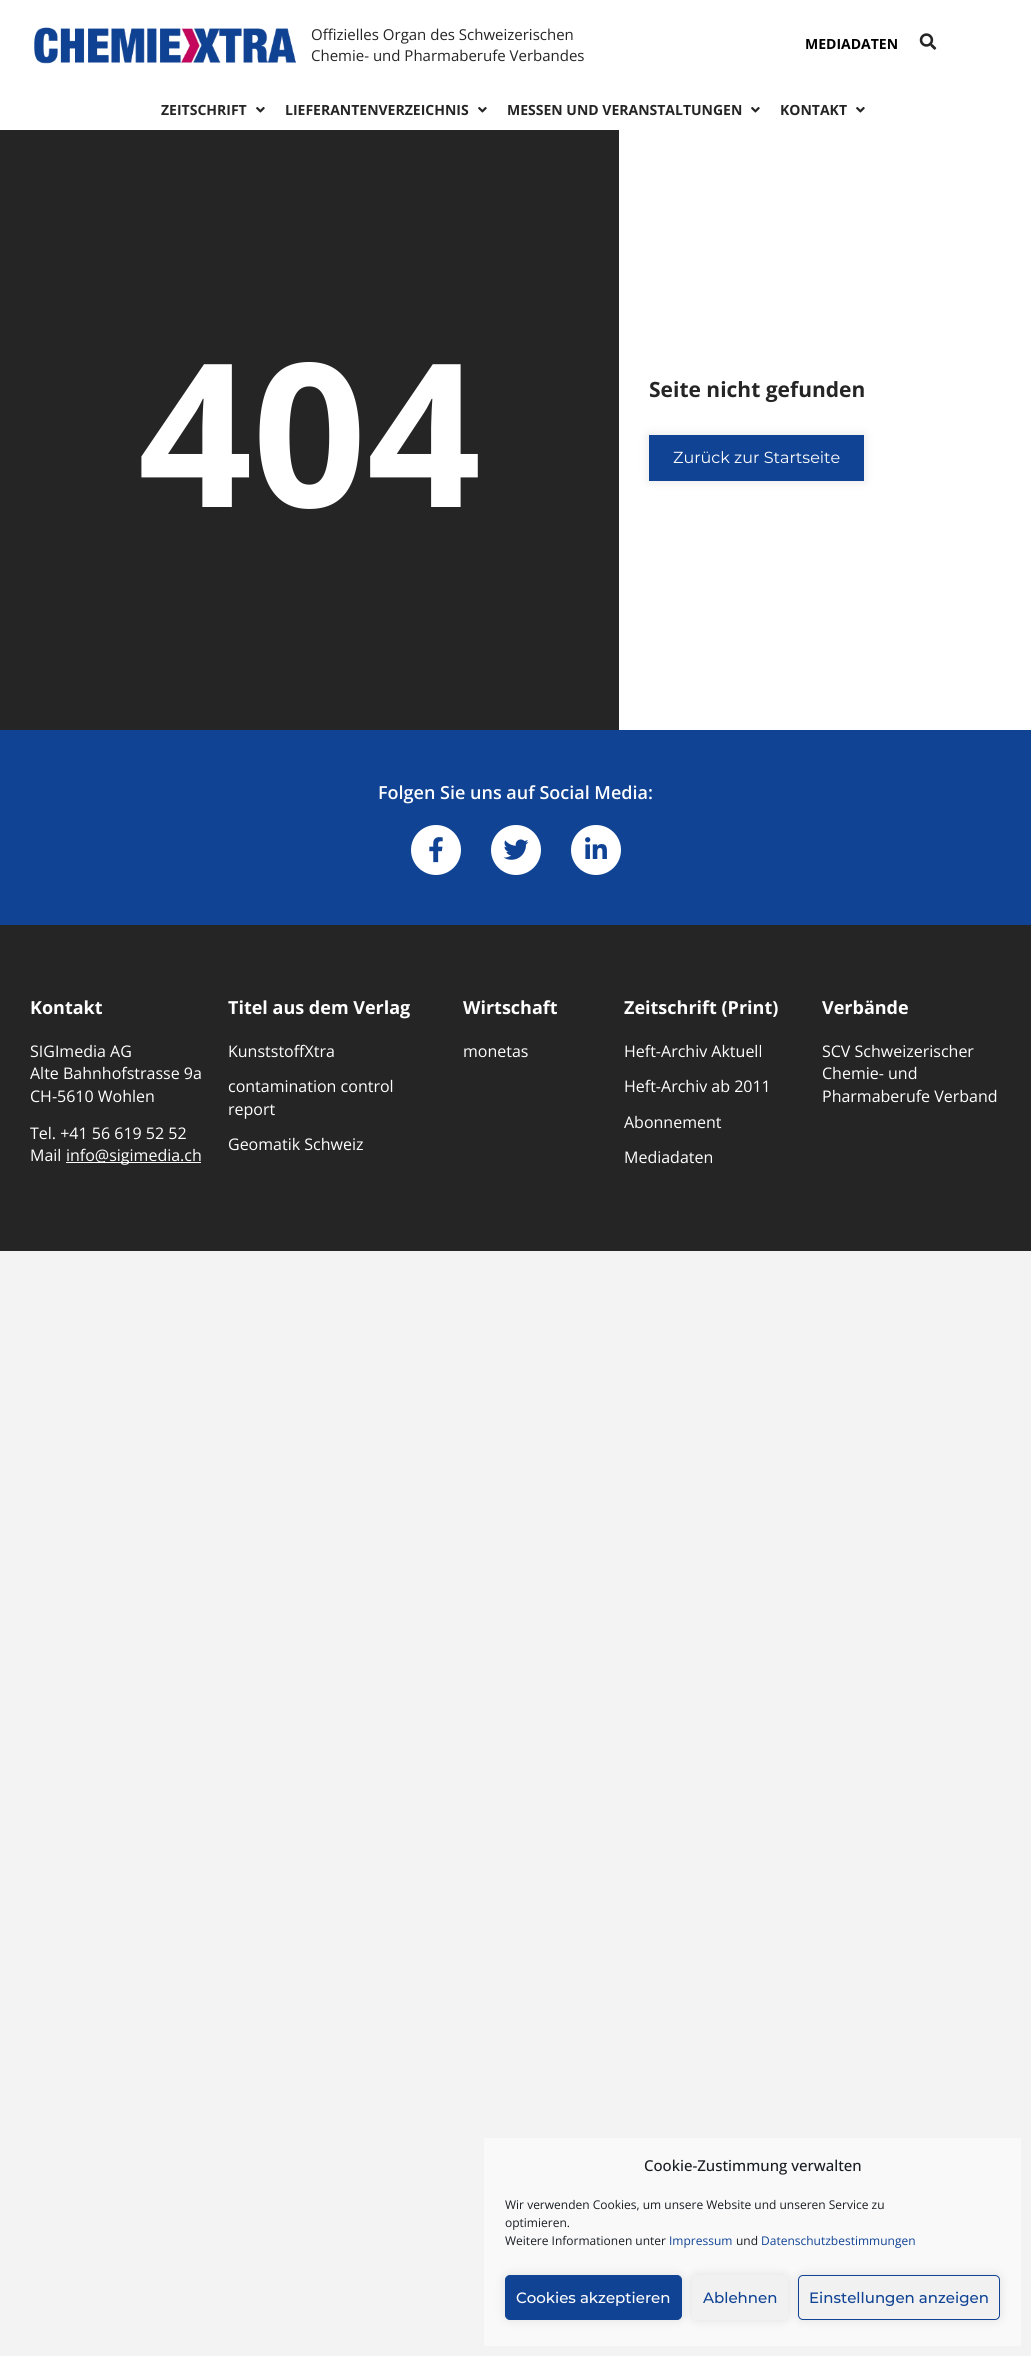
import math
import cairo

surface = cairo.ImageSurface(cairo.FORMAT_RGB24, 1031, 2356)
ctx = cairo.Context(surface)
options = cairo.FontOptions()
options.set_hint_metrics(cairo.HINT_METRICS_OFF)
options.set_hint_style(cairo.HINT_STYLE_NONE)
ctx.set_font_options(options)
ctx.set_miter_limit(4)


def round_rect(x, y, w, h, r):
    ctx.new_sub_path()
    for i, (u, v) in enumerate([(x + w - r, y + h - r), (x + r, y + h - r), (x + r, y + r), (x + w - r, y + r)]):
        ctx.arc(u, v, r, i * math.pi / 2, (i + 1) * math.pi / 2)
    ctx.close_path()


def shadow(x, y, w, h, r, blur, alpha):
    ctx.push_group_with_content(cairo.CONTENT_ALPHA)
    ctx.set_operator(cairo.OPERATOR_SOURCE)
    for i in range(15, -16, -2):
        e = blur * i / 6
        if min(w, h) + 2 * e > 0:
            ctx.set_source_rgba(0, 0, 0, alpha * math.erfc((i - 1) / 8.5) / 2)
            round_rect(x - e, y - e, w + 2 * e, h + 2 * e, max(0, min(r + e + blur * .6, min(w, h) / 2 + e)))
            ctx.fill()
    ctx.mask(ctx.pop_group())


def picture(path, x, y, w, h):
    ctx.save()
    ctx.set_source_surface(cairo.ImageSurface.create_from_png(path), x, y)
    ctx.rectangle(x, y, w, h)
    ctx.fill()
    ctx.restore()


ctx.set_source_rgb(0.953, 0.953, 0.953)
ctx.paint()
ctx.set_source_rgb(1, 1, 1)
ctx.rectangle(0, 0, 1031, 130)
ctx.fill()
picture("img1.png", 34, 27, 262, 37)
ctx.select_font_face("Open Sans")
ctx.set_font_size(15)
ctx.set_source_rgb(0.145, 0.145, 0.145)
ctx.move_to(311, 40)
ctx.show_text("Offizielles Organ des Schweizerischen")
ctx.move_to(311, 61)
ctx.show_text("Chemie- und Pharmaberufe Verbandes")
ctx.select_font_face("Open Sans", cairo.FONT_SLANT_NORMAL, cairo.FONT_WEIGHT_BOLD)
ctx.set_font_size(14)
ctx.set_source_rgb(0, 0, 0)
ctx.move_to(805, 49)
ctx.show_text("MEDIADATEN")
picture("img2.png", 919, 33, 18, 17)
ctx.set_source_rgb(0.145, 0.145, 0.145)
ctx.move_to(161, 115)
ctx.show_text("ZEITSCHRIFT")
picture("img3.png", 256, 107, 9, 6)
ctx.move_to(285, 115)
ctx.show_text("LIEFERANTENVERZEICHNIS")
picture("img3.png", 478, 107, 9, 6)
ctx.move_to(507, 115)
ctx.show_text("MESSEN UND VERANSTALTUNGEN")
picture("img3.png", 751, 107, 9, 6)
ctx.move_to(780, 115)
ctx.show_text("KONTAKT")
picture("img3.png", 856, 107, 9, 6)
ctx.set_source_rgb(1, 1, 1)
ctx.rectangle(619, 130, 412, 600)
ctx.fill()
ctx.set_source_rgb(0.145, 0.145, 0.145)
ctx.rectangle(0, 130, 619, 600)
ctx.fill()
ctx.set_font_size(200)
ctx.set_source_rgb(1, 1, 1)
ctx.move_to(138, 507)
ctx.show_text("404")
ctx.set_font_size(21)
ctx.set_source_rgb(0.145, 0.145, 0.145)
ctx.move_to(649, 397)
ctx.show_text("Seite nicht gefunden")
ctx.set_source_rgb(0.675, 0.675, 0.675)
shadow(649, 435, 215, 46, 0, 5, 0.34)
ctx.set_source_rgb(0.063, 0.263, 0.58)
ctx.rectangle(649, 435, 215, 46)
ctx.fill()
ctx.select_font_face("Montserrat")
ctx.set_font_size(16)
ctx.set_source_rgb(1, 1, 1)
ctx.move_to(673, 463)
ctx.show_text("Zurück zur Startseite")
ctx.set_source_rgb(0.063, 0.263, 0.58)
ctx.rectangle(0, 730, 1031, 195)
ctx.fill()
ctx.select_font_face("Open Sans SemiBold")
ctx.set_font_size(18)
ctx.set_source_rgb(1, 1, 1)
ctx.move_to(378, 799)
ctx.show_text("Folgen Sie uns auf Social Media:")
ctx.new_path()
ctx.arc(436, 850, 25, 0, 2 * math.pi)
ctx.fill()
picture("img4.png", 429, 837, 14, 26)
ctx.arc(516, 850, 25, 0, 2 * math.pi)
ctx.fill()
picture("img5.png", 503, 839, 26, 21)
ctx.arc(596, 850, 25, 0, 2 * math.pi)
ctx.fill()
picture("img6.png", 585, 837, 22, 22)
ctx.set_source_rgb(0.145, 0.145, 0.145)
ctx.rectangle(0, 925, 1031, 326)
ctx.fill()
ctx.select_font_face("Open Sans", cairo.FONT_SLANT_NORMAL, cairo.FONT_WEIGHT_BOLD)
ctx.set_source_rgb(1, 1, 1)
ctx.move_to(30, 1014)
ctx.show_text("Kontakt")
ctx.select_font_face("Open Sans")
ctx.set_font_size(16)
ctx.move_to(30, 1057)
ctx.show_text("SIGImedia AG")
ctx.move_to(30, 1079)
ctx.show_text("Alte Bahnhofstrasse 9a")
ctx.move_to(30, 1102)
ctx.show_text("CH-5610 Wohlen")
ctx.move_to(30, 1139)
ctx.show_text("Tel. +41 56 619 52 52")
ctx.move_to(30, 1161)
ctx.show_text("Mail")
ctx.rectangle(66, 1162, 135, 1)
ctx.fill()
ctx.move_to(66, 1161)
ctx.show_text("info@sigimedia.ch")
ctx.select_font_face("Open Sans", cairo.FONT_SLANT_NORMAL, cairo.FONT_WEIGHT_BOLD)
ctx.set_font_size(18)
ctx.move_to(228, 1014)
ctx.show_text("Titel aus dem Verlag")
ctx.select_font_face("Open Sans")
ctx.set_font_size(16)
ctx.move_to(228, 1057)
ctx.show_text("KunststoffXtra")
ctx.move_to(228, 1092)
ctx.show_text("contamination control")
ctx.move_to(228, 1115)
ctx.show_text("report")
ctx.move_to(228, 1150)
ctx.show_text("Geomatik Schweiz")
ctx.select_font_face("Open Sans", cairo.FONT_SLANT_NORMAL, cairo.FONT_WEIGHT_BOLD)
ctx.set_font_size(18)
ctx.move_to(463, 1014)
ctx.show_text("Wirtschaft")
ctx.select_font_face("Open Sans")
ctx.set_font_size(16)
ctx.move_to(463, 1057)
ctx.show_text("monetas")
ctx.select_font_face("Open Sans", cairo.FONT_SLANT_NORMAL, cairo.FONT_WEIGHT_BOLD)
ctx.set_font_size(18)
ctx.move_to(624, 1014)
ctx.show_text("Zeitschrift (Print)")
ctx.select_font_face("Open Sans")
ctx.set_font_size(16)
ctx.move_to(624, 1057)
ctx.show_text("Heft-Archiv Aktuell")
ctx.move_to(624, 1092)
ctx.show_text("Heft-Archiv ab 2011")
ctx.move_to(624, 1128)
ctx.show_text("Abonnement")
ctx.move_to(624, 1163)
ctx.show_text("Mediadaten")
ctx.select_font_face("Open Sans", cairo.FONT_SLANT_NORMAL, cairo.FONT_WEIGHT_BOLD)
ctx.set_font_size(18)
ctx.move_to(822, 1014)
ctx.show_text("Verbände")
ctx.select_font_face("Open Sans")
ctx.set_font_size(16)
ctx.move_to(822, 1057)
ctx.show_text("SCV Schweizerischer")
ctx.move_to(822, 1079)
ctx.show_text("Chemie- und")
ctx.move_to(822, 1102)
ctx.show_text("Pharmaberufe Verband")
ctx.set_source_rgb(0.976, 0.976, 0.976)
ctx.rectangle(484, 2138, 537, 208)
ctx.fill()
ctx.select_font_face("Open Sans Medium")
ctx.set_font_size(15)
ctx.set_source_rgb(0.098, 0.118, 0.137)
ctx.move_to(644, 2171)
ctx.show_text("Cookie-Zustimmung verwalten")
ctx.select_font_face("Open Sans")
ctx.set_font_size(12)
ctx.move_to(505, 2209)
ctx.show_text("Wir verwenden Cookies, um unsere Website und unseren Service zu")
ctx.move_to(505, 2227)
ctx.show_text("optimieren.")
ctx.move_to(505, 2245)
ctx.show_text("Weitere Informationen unter")
ctx.set_source_rgb(0.063, 0.263, 0.58)
ctx.move_to(669, 2245)
ctx.show_text("Impressum")
ctx.set_source_rgb(0.098, 0.118, 0.137)
ctx.move_to(736, 2245)
ctx.show_text("und")
ctx.set_source_rgb(0.063, 0.263, 0.58)
ctx.move_to(761, 2245)
ctx.show_text("Datenschutzbestimmungen")
ctx.set_source_rgb(0.675, 0.675, 0.675)
shadow(505, 2275, 177, 45, 5, 5, 0.34)
ctx.set_source_rgb(0.063, 0.263, 0.58)
round_rect(505.5, 2275.5, 176, 44, 4.5)
ctx.fill_preserve()
ctx.set_line_width(1)
ctx.stroke()
ctx.select_font_face("Montserrat Medium")
ctx.set_font_size(15)
ctx.set_source_rgb(1, 1, 1)
ctx.move_to(516, 2303)
ctx.show_text("Cookies akzeptieren")
ctx.set_source_rgb(0.675, 0.675, 0.675)
shadow(692, 2275, 96, 45, 5, 5, 0.34)
ctx.set_source_rgb(0.945, 0.945, 0.945)
round_rect(692, 2275, 96, 45, 5)
ctx.fill()
ctx.set_source_rgb(0.063, 0.263, 0.58)
ctx.move_to(703, 2303)
ctx.show_text("Ablehnen")
ctx.set_source_rgb(0.675, 0.675, 0.675)
shadow(798, 2275, 202, 45, 5, 5, 0.34)
ctx.set_source_rgb(0.945, 0.945, 0.945)
round_rect(798.5, 2275.5, 201, 44, 4.5)
ctx.fill_preserve()
ctx.set_source_rgb(0.063, 0.263, 0.58)
ctx.stroke()
ctx.move_to(809, 2303)
ctx.show_text("Einstellungen anzeigen")
surface.write_to_png("page.png")
